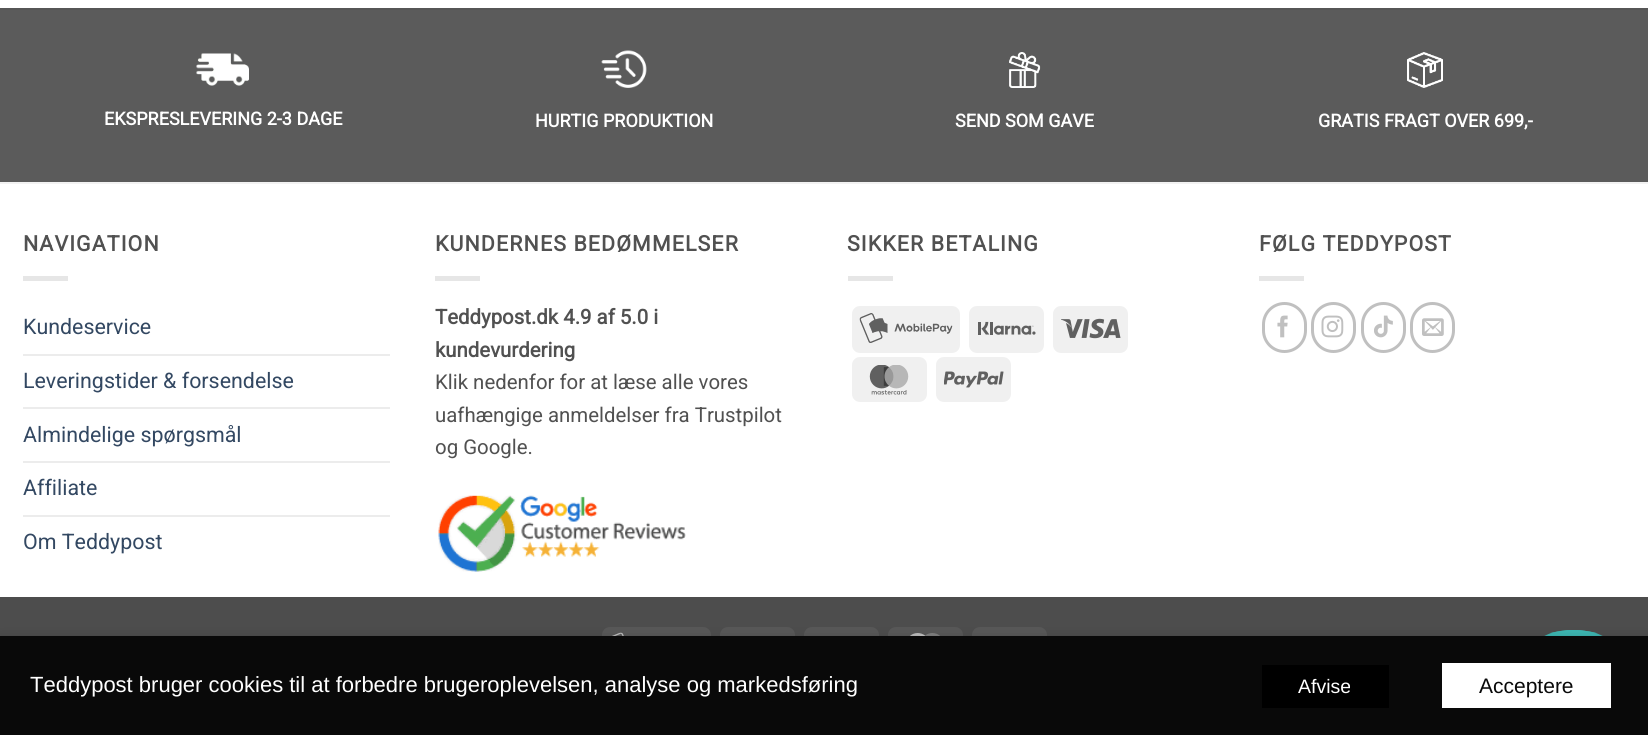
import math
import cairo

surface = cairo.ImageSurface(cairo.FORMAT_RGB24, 1648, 735)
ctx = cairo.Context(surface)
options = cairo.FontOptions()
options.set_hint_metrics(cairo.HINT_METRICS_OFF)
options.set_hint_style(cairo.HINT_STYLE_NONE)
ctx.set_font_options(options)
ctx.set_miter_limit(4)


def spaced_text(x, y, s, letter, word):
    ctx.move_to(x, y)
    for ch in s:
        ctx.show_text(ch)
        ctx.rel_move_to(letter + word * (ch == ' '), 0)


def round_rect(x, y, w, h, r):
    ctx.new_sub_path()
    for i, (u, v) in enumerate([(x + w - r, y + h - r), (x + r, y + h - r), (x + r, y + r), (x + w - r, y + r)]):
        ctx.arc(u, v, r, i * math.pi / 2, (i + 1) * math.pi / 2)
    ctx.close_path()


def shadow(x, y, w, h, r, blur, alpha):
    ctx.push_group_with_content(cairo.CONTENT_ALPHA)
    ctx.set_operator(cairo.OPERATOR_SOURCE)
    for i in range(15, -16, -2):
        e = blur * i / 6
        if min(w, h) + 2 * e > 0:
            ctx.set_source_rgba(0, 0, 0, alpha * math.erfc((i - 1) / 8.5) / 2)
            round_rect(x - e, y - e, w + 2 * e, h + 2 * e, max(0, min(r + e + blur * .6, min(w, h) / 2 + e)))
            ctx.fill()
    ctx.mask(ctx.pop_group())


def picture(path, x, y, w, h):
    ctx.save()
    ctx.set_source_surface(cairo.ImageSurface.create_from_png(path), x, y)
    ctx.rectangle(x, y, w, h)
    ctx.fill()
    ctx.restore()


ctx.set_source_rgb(1, 1, 1)
ctx.paint()
ctx.set_source_rgb(0.357, 0.357, 0.357)
ctx.rectangle(0, 10, 1648, 172)
ctx.fill()
ctx.set_source_rgb(0.337, 0.337, 0.337)
ctx.rectangle(0, 8, 1648, 2)
ctx.fill()
picture("img1.png", 196, 53, 53, 33)
ctx.select_font_face("Roboto", cairo.FONT_SLANT_NORMAL, cairo.FONT_WEIGHT_BOLD)
ctx.set_font_size(18)
ctx.set_source_rgb(1, 1, 1)
ctx.move_to(104, 125)
ctx.show_text("EKSPRESLEVERING 2-3 DAGE")
picture("img2.png", 601, 50, 46, 38)
ctx.move_to(535, 127)
ctx.show_text("HURTIG PRODUKTION")
picture("img3.png", 1009, 52, 32, 36)
ctx.move_to(955, 127)
ctx.show_text("SEND SOM GAVE")
picture("img4.png", 1407, 52, 36, 36)
ctx.move_to(1318, 127)
ctx.show_text("GRATIS FRAGT OVER 699,-")
ctx.set_source_rgb(0.949, 0.949, 0.949)
ctx.rectangle(0, 182, 1648, 2)
ctx.fill()
ctx.set_font_size(21.4)
ctx.set_source_rgb(0.318, 0.318, 0.318)
spaced_text(23, 251, "NAVIGATION", 1.1, 0)
ctx.set_source_rgb(0.902, 0.902, 0.902)
ctx.rectangle(23, 276, 45, 5)
ctx.fill()
ctx.select_font_face("Roboto")
ctx.set_source_rgb(0.2, 0.282, 0.384)
ctx.move_to(23, 334)
ctx.show_text("Kundeservice")
ctx.set_source_rgb(0.925, 0.925, 0.925)
ctx.rectangle(23, 354, 367, 2)
ctx.fill()
ctx.set_source_rgb(0.2, 0.282, 0.384)
ctx.move_to(23, 388)
ctx.show_text("Leveringstider & forsendelse")
ctx.set_source_rgb(0.925, 0.925, 0.925)
ctx.rectangle(23, 407, 367, 2)
ctx.fill()
ctx.set_source_rgb(0.2, 0.282, 0.384)
ctx.move_to(23, 442)
ctx.show_text("Almindelige spørgsmål")
ctx.set_source_rgb(0.925, 0.925, 0.925)
ctx.rectangle(23, 461, 367, 2)
ctx.fill()
ctx.set_source_rgb(0.2, 0.282, 0.384)
ctx.move_to(23, 495)
ctx.show_text("Affiliate")
ctx.set_source_rgb(0.925, 0.925, 0.925)
ctx.rectangle(23, 515, 367, 2)
ctx.fill()
ctx.set_source_rgb(0.2, 0.282, 0.384)
ctx.move_to(23, 549)
ctx.show_text("Om Teddypost")
ctx.select_font_face("Roboto", cairo.FONT_SLANT_NORMAL, cairo.FONT_WEIGHT_BOLD)
ctx.set_source_rgb(0.318, 0.318, 0.318)
spaced_text(435, 251, "KUNDERNES BEDØMMELSER", 1.1, 0)
ctx.set_source_rgb(0.902, 0.902, 0.902)
ctx.rectangle(435, 276, 45, 5)
ctx.fill()
ctx.set_font_size(20.4)
ctx.set_source_rgb(0.318, 0.318, 0.318)
ctx.move_to(435, 324)
ctx.show_text("Teddypost.dk 4.9 af 5.0 i")
ctx.move_to(435, 357)
ctx.show_text("kundevurdering")
ctx.select_font_face("Roboto")
ctx.move_to(435, 389)
ctx.show_text("Klik nedenfor for at læse alle vores")
ctx.move_to(435, 422)
ctx.show_text("uafhængige anmeldelser fra Trustpilot")
ctx.move_to(435, 454)
ctx.show_text("og Google.")
picture("img5.png", 438, 495, 248, 77)
ctx.select_font_face("Roboto", cairo.FONT_SLANT_NORMAL, cairo.FONT_WEIGHT_BOLD)
ctx.set_font_size(21.4)
spaced_text(847, 251, "SIKKER BETALING", 1.1, 0)
ctx.set_source_rgb(0.902, 0.902, 0.902)
ctx.rectangle(848, 276, 45, 5)
ctx.fill()
ctx.set_source_rgb(0.941, 0.941, 0.941)
round_rect(852, 306, 108, 47, 8)
ctx.fill()
picture("img6.png", 859, 313, 94, 30)
round_rect(969, 306, 75, 47, 8)
ctx.fill()
picture("img7.png", 978, 321, 58, 14)
round_rect(1053, 306, 75, 47, 8)
ctx.fill()
picture("img8.png", 1061, 318, 60, 21)
round_rect(852, 357, 75, 45, 8)
ctx.fill()
picture("img9.png", 869, 365, 40, 30)
round_rect(936, 357, 75, 45, 8)
ctx.fill()
picture("img10.png", 944, 371, 60, 17)
ctx.set_source_rgb(0.318, 0.318, 0.318)
spaced_text(1259, 251, "FØLG TEDDYPOST", 1.1, 0)
ctx.set_source_rgb(0.902, 0.902, 0.902)
ctx.rectangle(1259, 276, 45, 5)
ctx.fill()
round_rect(1263.5, 303.5, 42, 48, 21)
ctx.set_source_rgb(0.753, 0.753, 0.753)
ctx.set_line_width(3)
ctx.stroke()
picture("img11.png", 1277, 315, 11, 23)
round_rect(1312.5, 303.5, 42, 48, 21)
ctx.stroke()
picture("img12.png", 1321, 315, 23, 23)
round_rect(1362.5, 303.5, 42, 48, 21)
ctx.stroke()
picture("img13.png", 1374, 315, 19, 23)
round_rect(1411.5, 303.5, 42, 48, 21)
ctx.stroke()
picture("img14.png", 1422, 318, 22, 18)
ctx.set_source_rgb(0.302, 0.302, 0.302)
ctx.rectangle(0, 597, 1648, 39)
ctx.fill()
ctx.set_source_rgb(0.345, 0.345, 0.345)
round_rect(602, 627, 109, 44, 8)
ctx.fill()
picture("img15.png", 612, 632, 12, 4)
round_rect(720, 627, 75, 44, 8)
ctx.fill()
round_rect(804, 627, 75, 44, 8)
ctx.fill()
round_rect(888, 627, 75, 44, 8)
ctx.fill()
picture("img16.png", 910, 633, 30, 3)
round_rect(972, 627, 75, 44, 8)
ctx.fill()
picture("img17.png", 1544, 630, 59, 6)
ctx.set_source_rgb(0, 0, 0)
shadow(0, 644, 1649, 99, 0, 7.5, 0.5)
ctx.set_source_rgb(0.039, 0.039, 0.039)
ctx.rectangle(0, 636, 1648, 99)
ctx.fill()
ctx.select_font_face("Liberation Sans")
ctx.set_font_size(22)
ctx.set_source_rgb(1, 1, 1)
ctx.move_to(30, 692)
ctx.show_text("Teddypost bruger cookies til at forbedre brugeroplevelsen, analyse og markedsføring")
ctx.set_source_rgb(0, 0, 0)
ctx.rectangle(1262, 665, 127, 43)
ctx.fill()
ctx.set_font_size(19.5)
ctx.set_source_rgb(1, 1, 1)
ctx.move_to(1298, 693)
ctx.show_text("Afvise")
ctx.rectangle(1442, 663, 169, 45)
ctx.fill()
ctx.set_font_size(21)
ctx.set_source_rgb(0.039, 0.039, 0.039)
ctx.move_to(1479, 693)
ctx.show_text("Acceptere")
surface.write_to_png("page.png")
